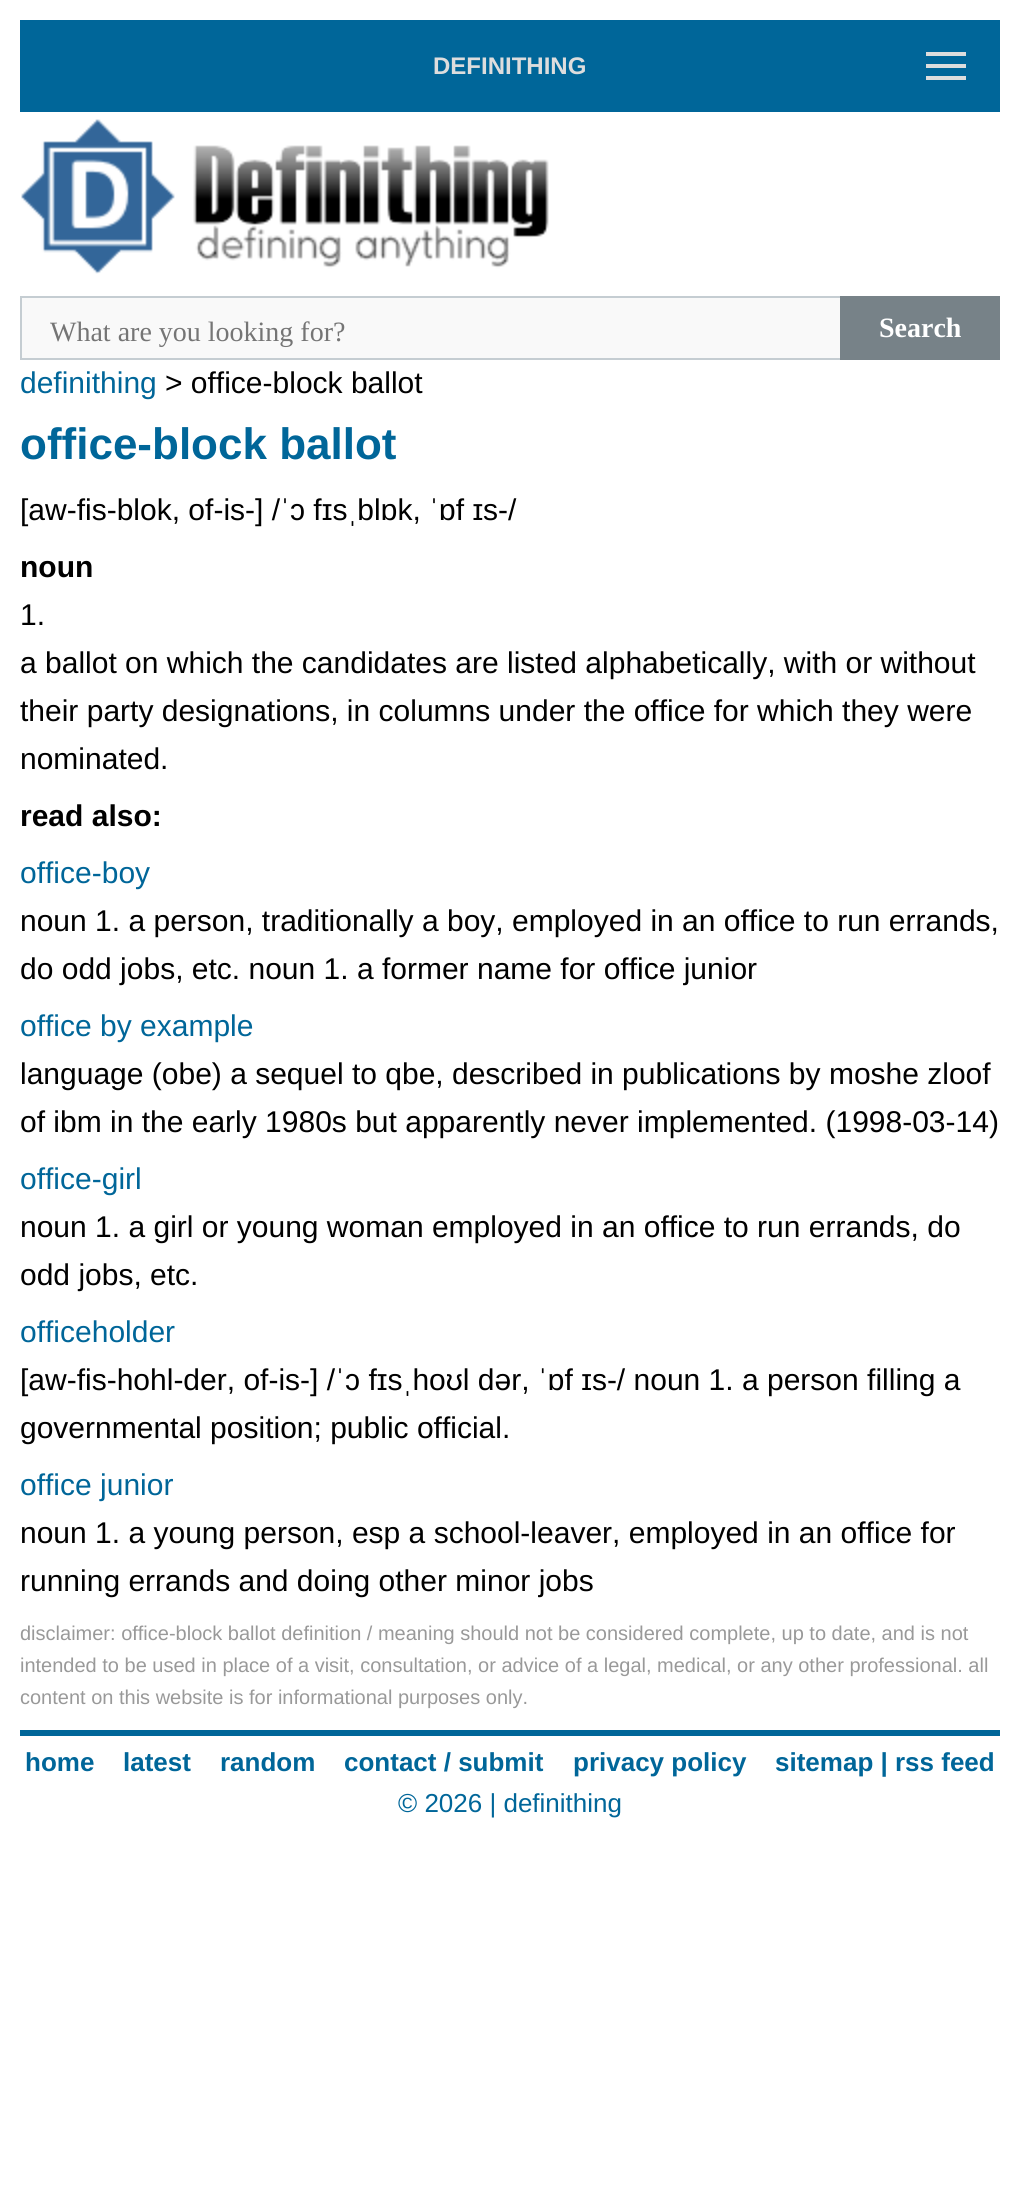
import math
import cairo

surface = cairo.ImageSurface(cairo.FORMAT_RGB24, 1019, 2201)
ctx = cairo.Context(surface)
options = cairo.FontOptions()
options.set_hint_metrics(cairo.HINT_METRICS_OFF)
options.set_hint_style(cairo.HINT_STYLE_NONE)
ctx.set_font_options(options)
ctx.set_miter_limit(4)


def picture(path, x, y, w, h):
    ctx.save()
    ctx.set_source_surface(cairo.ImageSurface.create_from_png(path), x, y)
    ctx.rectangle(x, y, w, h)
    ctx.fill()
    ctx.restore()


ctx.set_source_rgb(1, 1, 1)
ctx.paint()
ctx.set_source_rgb(0, 0.4, 0.6)
ctx.rectangle(20, 20, 980, 92)
ctx.fill()
ctx.set_source_rgb(0.867, 0.867, 0.867)
ctx.rectangle(926, 52, 40, 4)
ctx.fill()
ctx.select_font_face("Liberation Sans", cairo.FONT_SLANT_NORMAL, cairo.FONT_WEIGHT_BOLD)
ctx.set_font_size(24)
ctx.move_to(433, 74)
ctx.show_text("DEFINITHING")
ctx.rectangle(926, 64, 40, 4)
ctx.fill()
ctx.rectangle(926, 76, 40, 4)
ctx.fill()
picture("img1.png", 21, 119, 528, 155)
ctx.set_source_rgb(0.976, 0.976, 0.976)
ctx.rectangle(22, 298, 818, 60)
ctx.fill()
ctx.rectangle(21, 297, 978, 62)
ctx.set_source_rgb(0.773, 0.804, 0.824)
ctx.stroke()
ctx.select_font_face("Liberation Serif")
ctx.set_font_size(28)
ctx.set_source_rgb(0.459, 0.459, 0.459)
ctx.move_to(50, 341)
ctx.show_text("What are you looking for?")
ctx.set_source_rgb(0.467, 0.51, 0.533)
ctx.rectangle(840, 296, 160, 64)
ctx.fill()
ctx.select_font_face("Liberation Serif", cairo.FONT_SLANT_NORMAL, cairo.FONT_WEIGHT_BOLD)
ctx.set_source_rgb(1, 1, 1)
ctx.move_to(879, 337)
ctx.show_text("Search")
ctx.select_font_face("Liberation Sans")
ctx.set_font_size(30)
ctx.set_source_rgb(0, 0.4, 0.6)
ctx.move_to(20, 393)
ctx.show_text("definithing")
ctx.set_source_rgb(0, 0, 0)
ctx.move_to(165, 393)
ctx.show_text("> office-block ballot")
ctx.select_font_face("Liberation Sans", cairo.FONT_SLANT_NORMAL, cairo.FONT_WEIGHT_BOLD)
ctx.set_font_size(44)
ctx.set_source_rgb(0, 0.4, 0.6)
ctx.move_to(20, 459)
ctx.show_text("office-block ballot")
ctx.select_font_face("Liberation Sans")
ctx.set_font_size(30)
ctx.set_source_rgb(0, 0, 0)
ctx.move_to(20, 520)
ctx.show_text("[aw-fis-blok, of-is-] /ˈɔ fɪsˌblɒk, ˈɒf ɪs-/")
ctx.select_font_face("Liberation Sans", cairo.FONT_SLANT_NORMAL, cairo.FONT_WEIGHT_BOLD)
ctx.move_to(20, 577)
ctx.show_text("noun")
ctx.select_font_face("Liberation Sans")
ctx.move_to(20, 625)
ctx.show_text("1.")
ctx.move_to(20, 673)
ctx.show_text("a ballot on which the candidates are listed alphabetically, with or without")
ctx.move_to(20, 721)
ctx.show_text("their party designations, in columns under the office for which they were")
ctx.move_to(20, 769)
ctx.show_text("nominated.")
ctx.select_font_face("Liberation Sans", cairo.FONT_SLANT_NORMAL, cairo.FONT_WEIGHT_BOLD)
ctx.move_to(20, 826)
ctx.show_text("read also:")
ctx.select_font_face("Liberation Sans")
ctx.set_source_rgb(0, 0.4, 0.6)
ctx.move_to(20, 883)
ctx.show_text("office-boy")
ctx.set_source_rgb(0, 0, 0)
ctx.move_to(20, 931)
ctx.show_text("noun 1. a person, traditionally a boy, employed in an office to run errands,")
ctx.move_to(20, 979)
ctx.show_text("do odd jobs, etc. noun 1. a former name for office junior")
ctx.set_source_rgb(0, 0.4, 0.6)
ctx.move_to(20, 1036)
ctx.show_text("office by example")
ctx.set_source_rgb(0, 0, 0)
ctx.move_to(20, 1084)
ctx.show_text("language (obe) a sequel to qbe, described in publications by moshe zloof")
ctx.move_to(20, 1132)
ctx.show_text("of ibm in the early 1980s but apparently never implemented. (1998-03-14)")
ctx.set_source_rgb(0, 0.4, 0.6)
ctx.move_to(20, 1189)
ctx.show_text("office-girl")
ctx.set_source_rgb(0, 0, 0)
ctx.move_to(20, 1237)
ctx.show_text("noun 1. a girl or young woman employed in an office to run errands, do")
ctx.move_to(20, 1285)
ctx.show_text("odd jobs, etc.")
ctx.set_source_rgb(0, 0.4, 0.6)
ctx.move_to(20, 1342)
ctx.show_text("officeholder")
ctx.set_source_rgb(0, 0, 0)
ctx.move_to(20, 1390)
ctx.show_text("[aw-fis-hohl-der, of-is-] /ˈɔ fɪsˌhoʊl dər, ˈɒf ɪs-/ noun 1. a person filling a")
ctx.move_to(20, 1438)
ctx.show_text("governmental position; public official.")
ctx.set_source_rgb(0, 0.4, 0.6)
ctx.move_to(20, 1495)
ctx.show_text("office junior")
ctx.set_source_rgb(0, 0, 0)
ctx.move_to(20, 1543)
ctx.show_text("noun 1. a young person, esp a school-leaver, employed in an office for")
ctx.move_to(20, 1591)
ctx.show_text("running errands and doing other minor jobs")
ctx.set_font_size(20)
ctx.set_source_rgb(0.6, 0.6, 0.6)
ctx.move_to(20, 1640)
ctx.show_text("disclaimer: office-block ballot definition / meaning should not be considered complete, up to date, and is not")
ctx.move_to(20, 1672)
ctx.show_text("intended to be used in place of a visit, consultation, or advice of a legal, medical, or any other professional. all")
ctx.move_to(20, 1704)
ctx.show_text("content on this website is for informational purposes only.")
ctx.set_source_rgb(0, 0.4, 0.6)
ctx.rectangle(20, 1730, 980, 6)
ctx.fill()
ctx.select_font_face("Liberation Sans", cairo.FONT_SLANT_NORMAL, cairo.FONT_WEIGHT_BOLD)
ctx.set_font_size(26)
ctx.move_to(25, 1771)
ctx.show_text("home")
ctx.move_to(123, 1771)
ctx.show_text("latest")
ctx.move_to(220, 1771)
ctx.show_text("random")
ctx.move_to(344, 1771)
ctx.show_text("contact / submit")
ctx.move_to(573, 1771)
ctx.show_text("privacy policy")
ctx.move_to(775, 1771)
ctx.show_text("sitemap | rss feed")
ctx.select_font_face("Liberation Sans")
ctx.move_to(398, 1812)
ctx.show_text("© 2026 | definithing")
surface.write_to_png("page.png")
